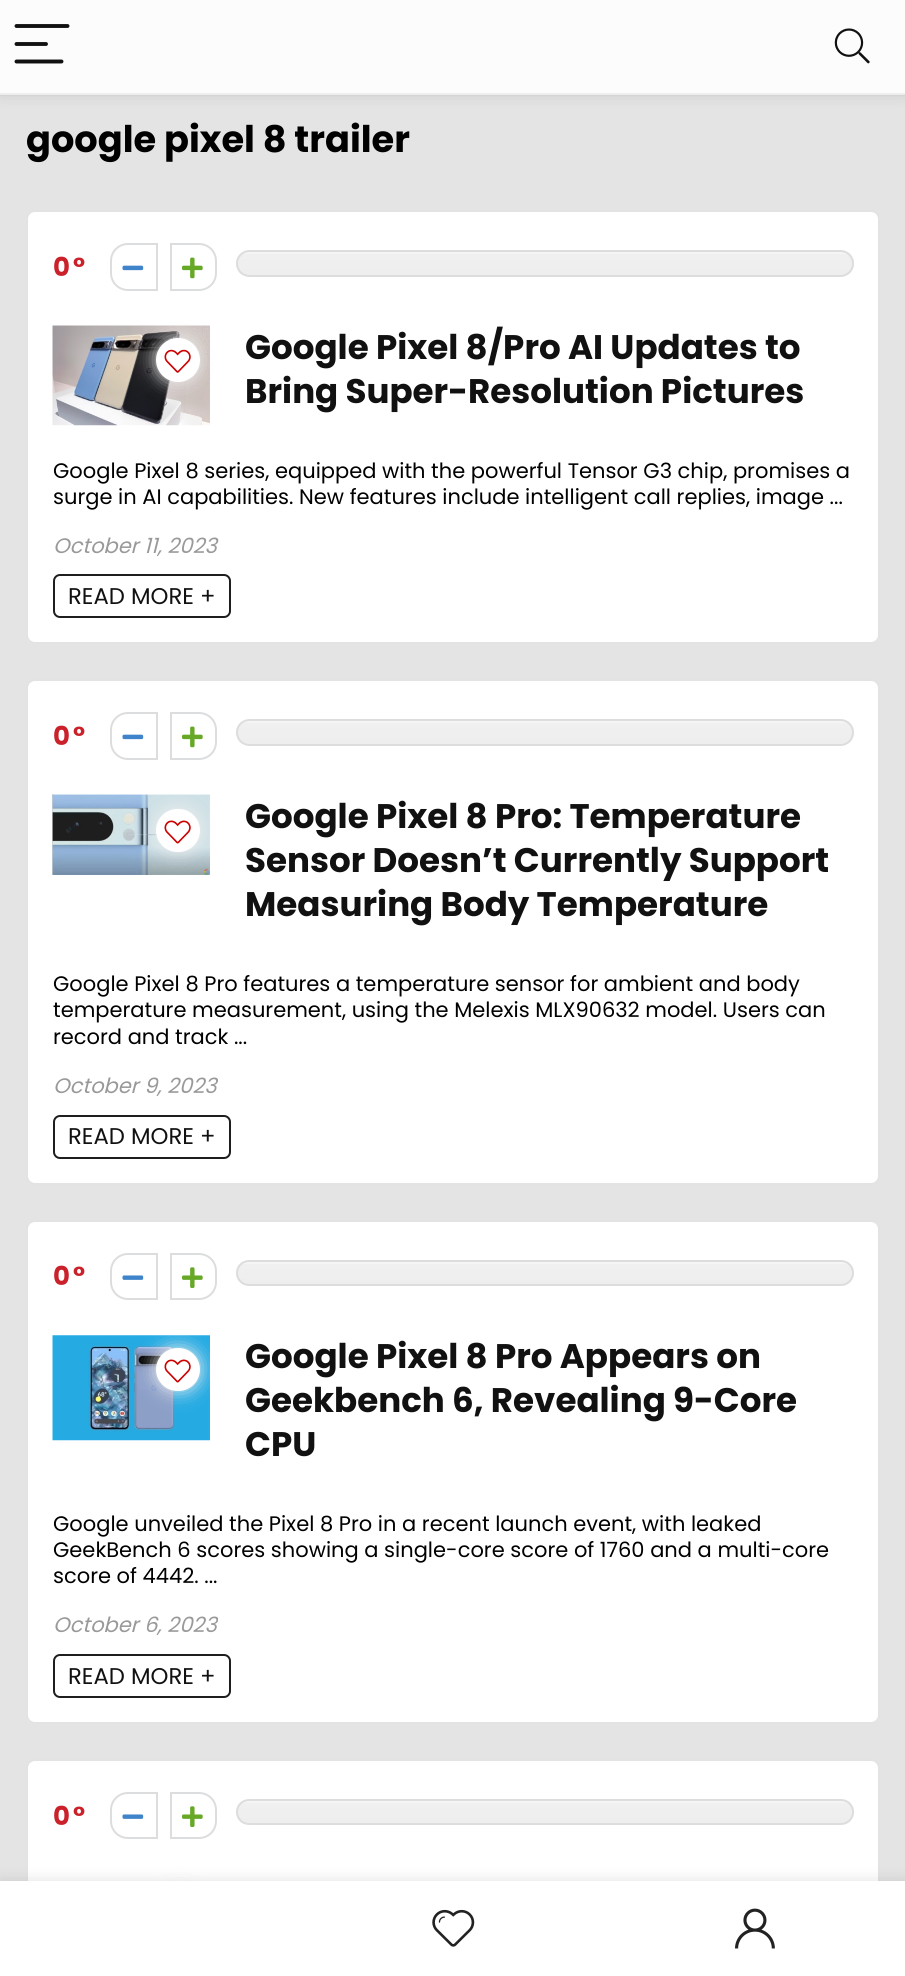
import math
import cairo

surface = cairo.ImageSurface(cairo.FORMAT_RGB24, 905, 1976)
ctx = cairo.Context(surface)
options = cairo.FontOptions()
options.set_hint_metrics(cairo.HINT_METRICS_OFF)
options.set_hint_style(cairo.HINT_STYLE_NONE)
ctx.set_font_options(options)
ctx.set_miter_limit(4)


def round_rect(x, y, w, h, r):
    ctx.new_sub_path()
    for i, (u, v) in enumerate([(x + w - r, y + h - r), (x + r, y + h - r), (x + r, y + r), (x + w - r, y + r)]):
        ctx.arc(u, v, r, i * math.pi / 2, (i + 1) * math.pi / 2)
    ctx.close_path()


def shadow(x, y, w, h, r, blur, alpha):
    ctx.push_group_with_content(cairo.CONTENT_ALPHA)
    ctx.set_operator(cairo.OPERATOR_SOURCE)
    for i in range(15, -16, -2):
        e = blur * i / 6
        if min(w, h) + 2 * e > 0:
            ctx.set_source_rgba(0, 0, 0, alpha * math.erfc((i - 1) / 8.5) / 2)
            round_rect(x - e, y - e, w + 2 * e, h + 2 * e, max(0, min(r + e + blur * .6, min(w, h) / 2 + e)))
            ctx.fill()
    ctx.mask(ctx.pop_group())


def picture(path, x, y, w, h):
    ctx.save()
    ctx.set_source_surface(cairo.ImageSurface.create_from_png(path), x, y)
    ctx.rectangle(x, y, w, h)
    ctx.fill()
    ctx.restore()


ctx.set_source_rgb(0.894, 0.894, 0.894)
ctx.paint()
ctx.rectangle(-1, -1, 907, 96)
ctx.set_source_rgba(0, 0, 0, 0.03)
ctx.stroke()
ctx.set_source_rgb(0, 0, 0)
shadow(0, 2, 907, 94, 0, 7, 0.1)
ctx.set_source_rgb(0.988, 0.988, 0.988)
ctx.rectangle(0, 0, 905, 93)
ctx.fill()
ctx.set_source_rgb(0.933, 0.933, 0.933)
ctx.rectangle(0, 93, 905, 2)
ctx.fill()
ctx.new_path()
ctx.move_to(16.5, 26)
ctx.line_to(67.5, 26)
ctx.move_to(16.5, 44)
ctx.line_to(46, 44)
ctx.move_to(16.5, 61.5)
ctx.line_to(61.5, 61.5)
ctx.set_source_rgb(0.067, 0.067, 0.067)
ctx.set_line_width(3.9)
ctx.set_line_cap(cairo.LINE_CAP_ROUND)
ctx.stroke()
picture("img1.png", 834, 28, 36, 36)
ctx.set_source_rgb(1, 1, 1)
round_rect(27, 1760, 852, 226, 8)
ctx.fill_preserve()
ctx.set_source_rgb(0.89, 0.89, 0.89)
ctx.set_line_width(2)
ctx.set_line_cap(cairo.LINE_CAP_BUTT)
ctx.stroke()
ctx.set_source_rgb(0, 0, 0)
shadow(0, 1881, 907, 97, 0, 8, 0.12)
ctx.set_source_rgb(0.937, 0.937, 0.937)
shadow(156, 1888, 44, 44, 22, 9, 1)
ctx.set_source_rgb(1, 1, 1)
ctx.rectangle(0, 1881, 905, 95)
ctx.fill()
picture("img2.png", 432, 1909, 43, 38)
picture("img3.png", 735, 1908, 40, 41)
ctx.select_font_face("Poppins", cairo.FONT_SLANT_NORMAL, cairo.FONT_WEIGHT_BOLD)
ctx.set_font_size(36.75)
ctx.set_source_rgb(0, 0, 0)
ctx.move_to(26, 152)
ctx.show_text("google pixel 8 trailer")
ctx.set_source_rgb(1, 1, 1)
round_rect(27, 211, 852, 432, 8)
ctx.fill_preserve()
ctx.set_source_rgb(0.89, 0.89, 0.89)
ctx.stroke()
ctx.set_font_size(26)
ctx.set_source_rgb(0.792, 0.129, 0.165)
ctx.move_to(53, 276)
ctx.show_text("0")
ctx.move_to(73, 276)
ctx.show_text("°")
ctx.new_path()
ctx.move_to(128, 244)
ctx.line_to(157, 244)
ctx.line_to(157, 290)
ctx.line_to(128, 290)
ctx.curve_to(118.5, 290, 111, 282.5, 111, 273)
ctx.line_to(111, 261)
ctx.curve_to(111, 251.5, 118.5, 244, 128, 244)
ctx.close_path()
ctx.set_source_rgb(0.863, 0.867, 0.871)
ctx.stroke()
picture("img4.png", 122, 265, 22, 6)
ctx.new_path()
ctx.move_to(171, 244)
ctx.line_to(199, 244)
ctx.curve_to(208.5, 244, 216, 251.5, 216, 261)
ctx.line_to(216, 273)
ctx.curve_to(216, 282.5, 208.5, 290, 199, 290)
ctx.line_to(171, 290)
ctx.close_path()
ctx.stroke()
picture("img5.png", 182, 257, 21, 22)
ctx.save()
round_rect(236, 250, 618, 27, 13.5)
ctx.clip()
gradient = cairo.LinearGradient(545, 252, 545, 275)
gradient.add_color_stop_rgba(0.08, 0.961, 0.961, 0.961, 1)
gradient.add_color_stop_rgba(0.08, 0.941, 0.941, 0.941, 1)
gradient.add_color_stop_rgba(1, 0.933, 0.933, 0.933, 1)
ctx.set_source(gradient)
ctx.rectangle(236, 252, 618, 23)
ctx.fill()
ctx.restore()
round_rect(237, 251, 616, 25, 12.5)
ctx.set_source_rgb(0.867, 0.867, 0.867)
ctx.stroke()
picture("img7.png", 52, 325, 158, 101)
ctx.set_source_rgb(0.937, 0.937, 0.937)
shadow(156, 338, 44, 44, 22, 9, 1)
ctx.set_source_rgb(1, 1, 1)
ctx.arc(178, 360, 22, 0, 2 * math.pi)
ctx.fill()
picture("img6.png", 164, 349, 27, 24)
ctx.set_font_size(34.1)
ctx.set_source_rgb(0.067, 0.067, 0.067)
ctx.move_to(245, 359)
ctx.show_text("Google Pixel 8/Pro AI Updates to")
ctx.move_to(245, 403)
ctx.show_text("Bring Super-Resolution Pictures")
ctx.select_font_face("Poppins")
ctx.set_font_size(21)
ctx.set_source_rgb(0, 0, 0)
ctx.move_to(53, 478)
ctx.show_text("Google Pixel 8 series, equipped with the powerful Tensor G3 chip, promises a")
ctx.move_to(53, 504)
ctx.show_text("surge in AI capabilities. New features include intelligent call replies, image ...")
ctx.select_font_face("Poppins", cairo.FONT_SLANT_ITALIC)
ctx.set_source_rgb(0.6, 0.6, 0.6)
ctx.move_to(53, 553)
ctx.show_text("October 11, 2023")
round_rect(54, 575, 176, 42, 6)
ctx.set_source_rgb(0.118, 0.118, 0.118)
ctx.stroke()
ctx.select_font_face("Poppins")
ctx.set_font_size(22.75)
ctx.set_source_rgb(0.067, 0.067, 0.067)
ctx.move_to(68, 604)
ctx.show_text("READ MORE +")
ctx.set_source_rgb(1, 1, 1)
round_rect(27, 680, 852, 504, 8)
ctx.fill_preserve()
ctx.set_source_rgb(0.89, 0.89, 0.89)
ctx.stroke()
ctx.select_font_face("Poppins", cairo.FONT_SLANT_NORMAL, cairo.FONT_WEIGHT_BOLD)
ctx.set_font_size(26)
ctx.set_source_rgb(0.792, 0.129, 0.165)
ctx.move_to(53, 745)
ctx.show_text("0")
ctx.move_to(73, 745)
ctx.show_text("°")
ctx.new_path()
ctx.move_to(128, 713)
ctx.line_to(157, 713)
ctx.line_to(157, 759)
ctx.line_to(128, 759)
ctx.curve_to(118.5, 759, 111, 751.5, 111, 742)
ctx.line_to(111, 730)
ctx.curve_to(111, 720.5, 118.5, 713, 128, 713)
ctx.close_path()
ctx.set_source_rgb(0.863, 0.867, 0.871)
ctx.stroke()
picture("img4.png", 122, 734, 22, 6)
ctx.new_path()
ctx.move_to(171, 713)
ctx.line_to(199, 713)
ctx.curve_to(208.5, 713, 216, 720.5, 216, 730)
ctx.line_to(216, 742)
ctx.curve_to(216, 751.5, 208.5, 759, 199, 759)
ctx.line_to(171, 759)
ctx.close_path()
ctx.stroke()
picture("img5.png", 182, 726, 21, 22)
ctx.save()
round_rect(236, 719, 618, 27, 13.5)
ctx.clip()
gradient = cairo.LinearGradient(545, 721, 545, 744)
gradient.add_color_stop_rgba(0.08, 0.961, 0.961, 0.961, 1)
gradient.add_color_stop_rgba(0.08, 0.941, 0.941, 0.941, 1)
gradient.add_color_stop_rgba(1, 0.933, 0.933, 0.933, 1)
ctx.set_source(gradient)
ctx.rectangle(236, 721, 618, 23)
ctx.fill()
ctx.restore()
round_rect(237, 720, 616, 25, 12.5)
ctx.set_source_rgb(0.867, 0.867, 0.867)
ctx.stroke()
picture("img9.png", 52, 794, 158, 81)
ctx.set_source_rgb(0.937, 0.937, 0.937)
shadow(156, 809, 44, 43, 21.5, 9, 1)
ctx.set_source_rgb(1, 1, 1)
round_rect(156, 809, 44, 43, 21.5)
ctx.fill()
picture("img8.png", 164, 820, 27, 24)
ctx.set_font_size(34.1)
ctx.set_source_rgb(0.067, 0.067, 0.067)
ctx.move_to(245, 828)
ctx.show_text("Google Pixel 8 Pro: Temperature")
ctx.move_to(245, 872)
ctx.show_text("Sensor Doesn’t Currently Support")
ctx.move_to(245, 916)
ctx.show_text("Measuring Body Temperature")
ctx.select_font_face("Poppins")
ctx.set_font_size(21)
ctx.set_source_rgb(0, 0, 0)
ctx.move_to(53, 991)
ctx.show_text("Google Pixel 8 Pro features a temperature sensor for ambient and body")
ctx.move_to(53, 1017)
ctx.show_text("temperature measurement, using the Melexis MLX90632 model. Users can")
ctx.move_to(53, 1044)
ctx.show_text("record and track ...")
ctx.select_font_face("Poppins", cairo.FONT_SLANT_ITALIC)
ctx.set_source_rgb(0.6, 0.6, 0.6)
ctx.move_to(53, 1093)
ctx.show_text("October 9, 2023")
round_rect(54, 1116, 176, 42, 6)
ctx.set_source_rgb(0.118, 0.118, 0.118)
ctx.stroke()
ctx.select_font_face("Poppins")
ctx.set_font_size(22.75)
ctx.set_source_rgb(0.067, 0.067, 0.067)
ctx.move_to(68, 1144)
ctx.show_text("READ MORE +")
ctx.set_source_rgb(1, 1, 1)
round_rect(27, 1221, 852, 502, 8)
ctx.fill_preserve()
ctx.set_source_rgb(0.89, 0.89, 0.89)
ctx.stroke()
ctx.select_font_face("Poppins", cairo.FONT_SLANT_NORMAL, cairo.FONT_WEIGHT_BOLD)
ctx.set_font_size(26)
ctx.set_source_rgb(0.792, 0.129, 0.165)
ctx.move_to(53, 1285)
ctx.show_text("0")
ctx.move_to(73, 1285)
ctx.show_text("°")
ctx.new_path()
ctx.move_to(128, 1254)
ctx.line_to(157, 1254)
ctx.line_to(157, 1299)
ctx.line_to(128, 1299)
ctx.curve_to(118.5, 1299, 111, 1291.5, 111, 1282)
ctx.line_to(111, 1271)
ctx.curve_to(111, 1261.5, 118.5, 1254, 128, 1254)
ctx.close_path()
ctx.set_source_rgb(0.863, 0.867, 0.871)
ctx.stroke()
picture("img10.png", 122, 1275, 22, 5)
ctx.new_path()
ctx.move_to(171, 1254)
ctx.line_to(199, 1254)
ctx.curve_to(208.5, 1254, 216, 1261.5, 216, 1271)
ctx.line_to(216, 1282)
ctx.curve_to(216, 1291.5, 208.5, 1299, 199, 1299)
ctx.line_to(171, 1299)
ctx.close_path()
ctx.stroke()
picture("img11.png", 182, 1267, 21, 21)
ctx.save()
round_rect(236, 1260, 618, 26, 13)
ctx.clip()
gradient = cairo.LinearGradient(545, 1262, 545, 1285)
gradient.add_color_stop_rgba(0.08, 0.961, 0.961, 0.961, 1)
gradient.add_color_stop_rgba(0.08, 0.941, 0.941, 0.941, 1)
gradient.add_color_stop_rgba(1, 0.933, 0.933, 0.933, 1)
ctx.set_source(gradient)
ctx.rectangle(236, 1262, 618, 23)
ctx.fill()
ctx.restore()
round_rect(237, 1261, 616, 24, 12)
ctx.set_source_rgb(0.867, 0.867, 0.867)
ctx.stroke()
picture("img12.png", 52, 1335, 158, 106)
ctx.set_source_rgb(0.937, 0.937, 0.937)
shadow(156, 1348, 44, 43, 21.5, 9, 1)
ctx.set_source_rgb(1, 1, 1)
round_rect(156, 1348, 44, 43, 21.5)
ctx.fill()
picture("img8.png", 164, 1359, 27, 24)
ctx.set_font_size(34.1)
ctx.set_source_rgb(0.067, 0.067, 0.067)
ctx.move_to(245, 1368)
ctx.show_text("Google Pixel 8 Pro Appears on")
ctx.move_to(245, 1412)
ctx.show_text("Geekbench 6, Revealing 9-Core")
ctx.move_to(245, 1456)
ctx.show_text("CPU")
ctx.select_font_face("Poppins")
ctx.set_font_size(21)
ctx.set_source_rgb(0, 0, 0)
ctx.move_to(53, 1531)
ctx.show_text("Google unveiled the Pixel 8 Pro in a recent launch event, with leaked")
ctx.move_to(53, 1557)
ctx.show_text("GeekBench 6 scores showing a single-core score of 1760 and a multi-core")
ctx.move_to(53, 1583)
ctx.show_text("score of 4442. ...")
ctx.select_font_face("Poppins", cairo.FONT_SLANT_ITALIC)
ctx.set_source_rgb(0.6, 0.6, 0.6)
ctx.move_to(53, 1632)
ctx.show_text("October 6, 2023")
round_rect(54, 1655, 176, 42, 6)
ctx.set_source_rgb(0.118, 0.118, 0.118)
ctx.stroke()
ctx.select_font_face("Poppins")
ctx.set_font_size(22.75)
ctx.set_source_rgb(0.067, 0.067, 0.067)
ctx.move_to(68, 1684)
ctx.show_text("READ MORE +")
ctx.select_font_face("Poppins", cairo.FONT_SLANT_NORMAL, cairo.FONT_WEIGHT_BOLD)
ctx.set_font_size(26)
ctx.set_source_rgb(0.792, 0.129, 0.165)
ctx.move_to(53, 1825)
ctx.show_text("0")
ctx.move_to(73, 1825)
ctx.show_text("°")
ctx.new_path()
ctx.move_to(128, 1793)
ctx.line_to(157, 1793)
ctx.line_to(157, 1838)
ctx.line_to(128, 1838)
ctx.curve_to(118.5, 1838, 111, 1830.5, 111, 1821)
ctx.line_to(111, 1810)
ctx.curve_to(111, 1800.5, 118.5, 1793, 128, 1793)
ctx.close_path()
ctx.set_source_rgb(0.863, 0.867, 0.871)
ctx.stroke()
picture("img10.png", 122, 1814, 22, 5)
ctx.new_path()
ctx.move_to(171, 1793)
ctx.line_to(199, 1793)
ctx.curve_to(208.5, 1793, 216, 1800.5, 216, 1810)
ctx.line_to(216, 1821)
ctx.curve_to(216, 1830.5, 208.5, 1838, 199, 1838)
ctx.line_to(171, 1838)
ctx.close_path()
ctx.stroke()
picture("img11.png", 182, 1806, 21, 21)
ctx.save()
round_rect(236, 1799, 618, 26, 13)
ctx.clip()
gradient = cairo.LinearGradient(545, 1801, 545, 1824)
gradient.add_color_stop_rgba(0.08, 0.961, 0.961, 0.961, 1)
gradient.add_color_stop_rgba(0.08, 0.941, 0.941, 0.941, 1)
gradient.add_color_stop_rgba(1, 0.933, 0.933, 0.933, 1)
ctx.set_source(gradient)
ctx.rectangle(236, 1801, 618, 23)
ctx.fill()
ctx.restore()
round_rect(237, 1800, 616, 24, 12)
ctx.set_source_rgb(0.867, 0.867, 0.867)
ctx.stroke()
surface.write_to_png("page.png")
